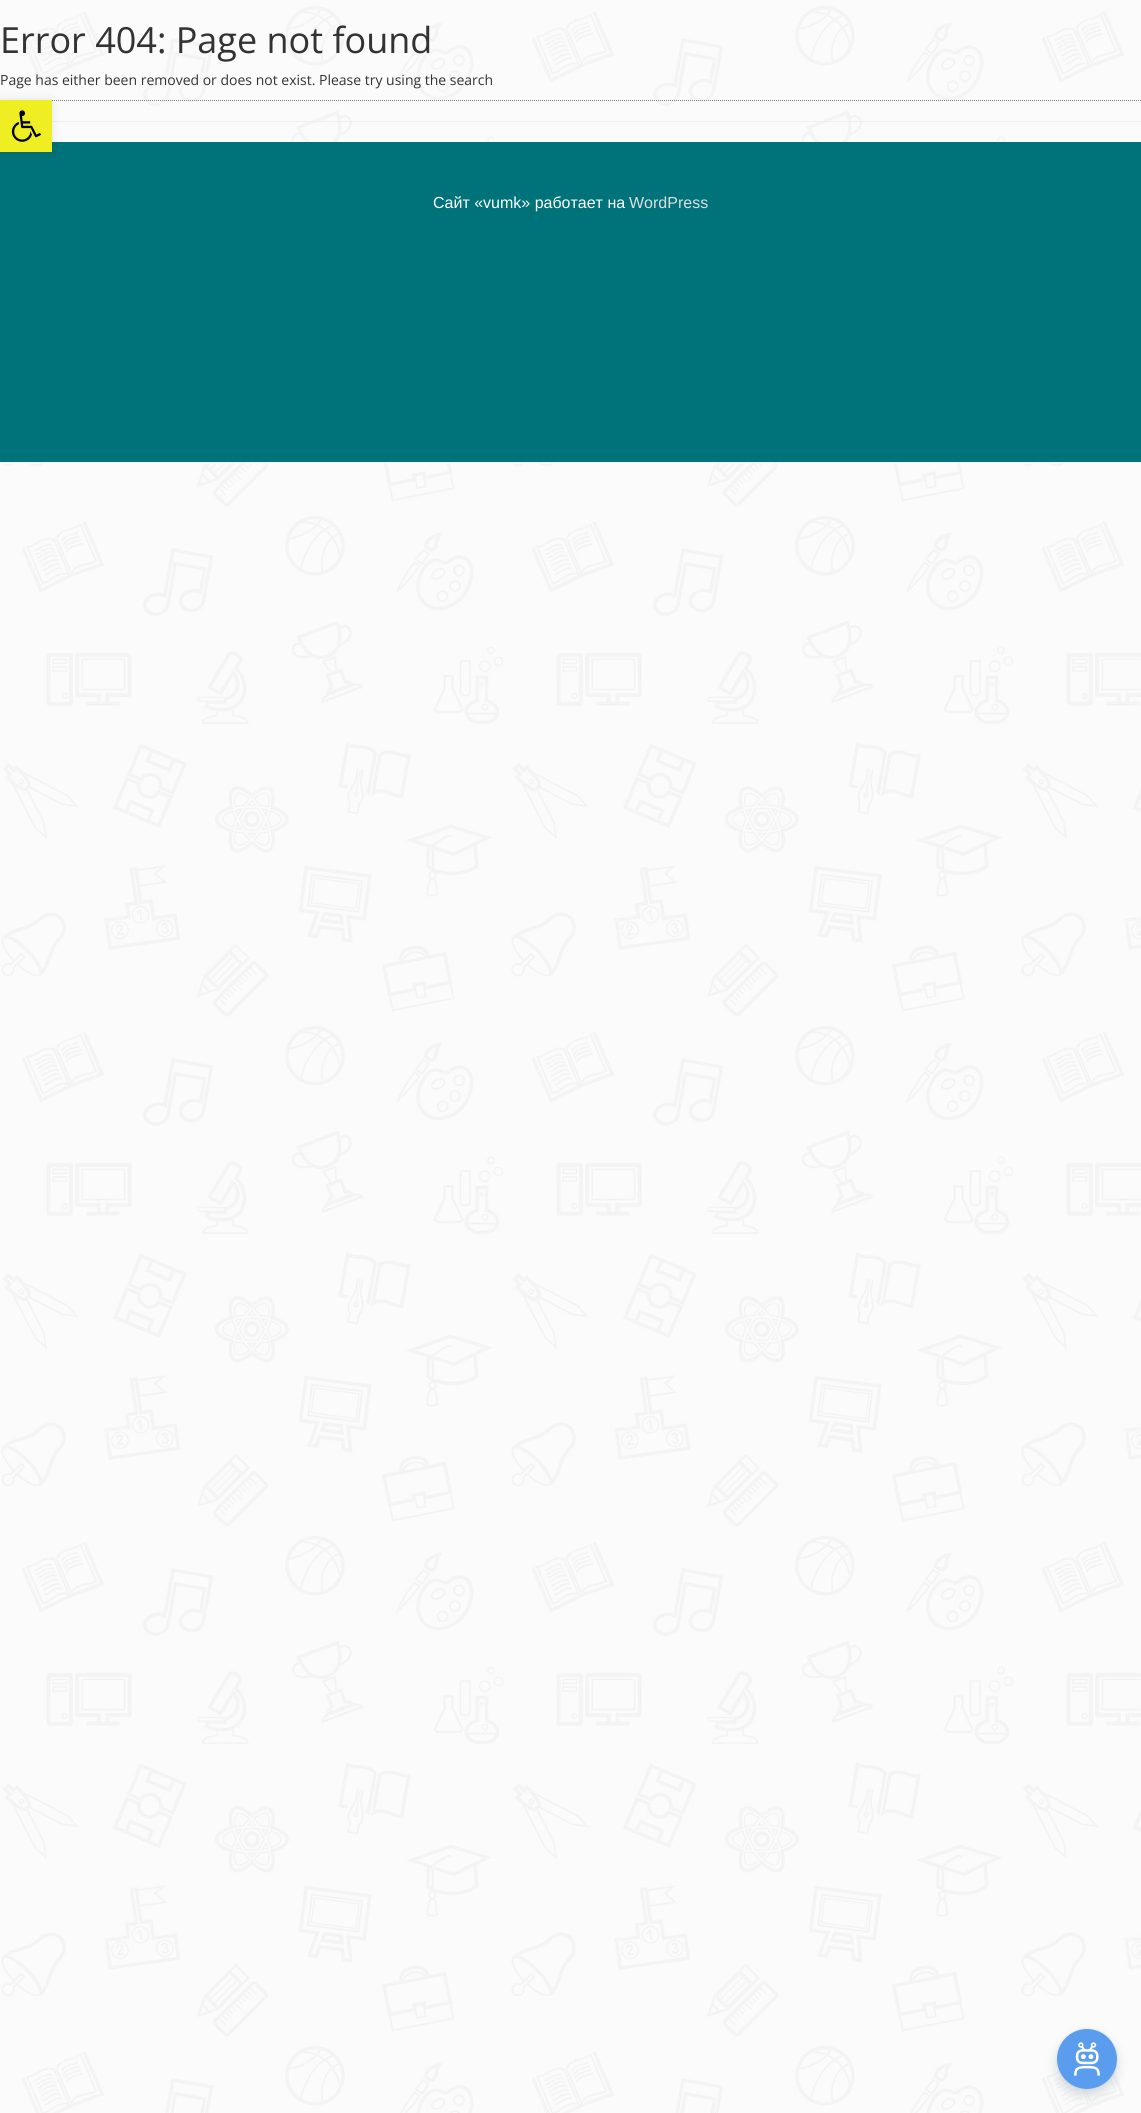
import math
import cairo

surface = cairo.ImageSurface(cairo.FORMAT_RGB24, 1141, 2113)
ctx = cairo.Context(surface)
options = cairo.FontOptions()
options.set_hint_metrics(cairo.HINT_METRICS_OFF)
options.set_hint_style(cairo.HINT_STYLE_NONE)
ctx.set_font_options(options)
ctx.set_miter_limit(4)


def round_rect(x, y, w, h, r):
    ctx.new_sub_path()
    for i, (u, v) in enumerate([(x + w - r, y + h - r), (x + r, y + h - r), (x + r, y + r), (x + w - r, y + r)]):
        ctx.arc(u, v, r, i * math.pi / 2, (i + 1) * math.pi / 2)
    ctx.close_path()


def shadow(x, y, w, h, r, blur, alpha):
    ctx.push_group_with_content(cairo.CONTENT_ALPHA)
    ctx.set_operator(cairo.OPERATOR_SOURCE)
    for i in range(15, -16, -2):
        e = blur * i / 6
        if min(w, h) + 2 * e > 0:
            ctx.set_source_rgba(0, 0, 0, alpha * math.erfc((i - 1) / 8.5) / 2)
            round_rect(x - e, y - e, w + 2 * e, h + 2 * e, max(0, min(r + e + blur * .6, min(w, h) / 2 + e)))
            ctx.fill()
    ctx.mask(ctx.pop_group())


def picture(path, x, y, w, h):
    ctx.save()
    ctx.set_source_surface(cairo.ImageSurface.create_from_png(path), x, y)
    ctx.rectangle(x, y, w, h)
    ctx.fill()
    ctx.restore()


ctx.set_source_rgb(1, 1, 1)
ctx.paint()
picture("img1.png", 0, 0, 1141, 2113)
ctx.new_path()
ctx.move_to(0, 100.5)
ctx.line_to(1141, 100.5)
ctx.set_source_rgb(0.502, 0.502, 0.502)
ctx.set_line_width(1)
ctx.set_dash([1, 1])
ctx.stroke()
ctx.select_font_face("Open Sans")
ctx.set_font_size(36)
ctx.set_source_rgb(0.2, 0.2, 0.2)
ctx.move_to(0, 53)
ctx.show_text("Error 404: Page not found")
ctx.set_font_size(14)
ctx.move_to(0, 85)
ctx.show_text("Page has either been removed or does not exist. Please try using the search")
ctx.set_source_rgb(0.933, 0.933, 0.933)
ctx.rectangle(52, 121, 1089, 1)
ctx.fill()
ctx.set_source_rgb(0, 0.447, 0.475)
ctx.rectangle(0, 142, 1141, 320)
ctx.fill()
ctx.set_source_rgb(0, 0, 0)
shadow(0, 100, 52, 52, 0, 5, 0.1)
ctx.set_source_rgb(0.933, 0.933, 0.133)
ctx.rectangle(0, 100, 52, 52)
ctx.fill()
picture("img2.png", 11, 110, 30, 32)
ctx.select_font_face("Liberation Sans")
ctx.set_font_size(16)
ctx.set_source_rgb(1, 1, 1)
ctx.move_to(433, 208)
ctx.show_text("Сайт «vumk» работает на")
ctx.set_source_rgb(0.867, 0.867, 0.867)
ctx.move_to(629, 208)
ctx.show_text("WordPress")
ctx.set_source_rgb(0, 0, 0)
shadow(1057, 2029, 60, 60, 30, 1, 0.1)
ctx.set_source_rgb(0.047, 0.169, 0.259)
shadow(1057, 2035, 60, 60, 30, 6, 0.16)
ctx.set_source_rgb(1, 1, 1)
ctx.arc(1087, 2059, 30, 0, 2 * math.pi)
ctx.fill()
picture("img3.png", 1057, 2029, 60, 60)
surface.write_to_png("page.png")
